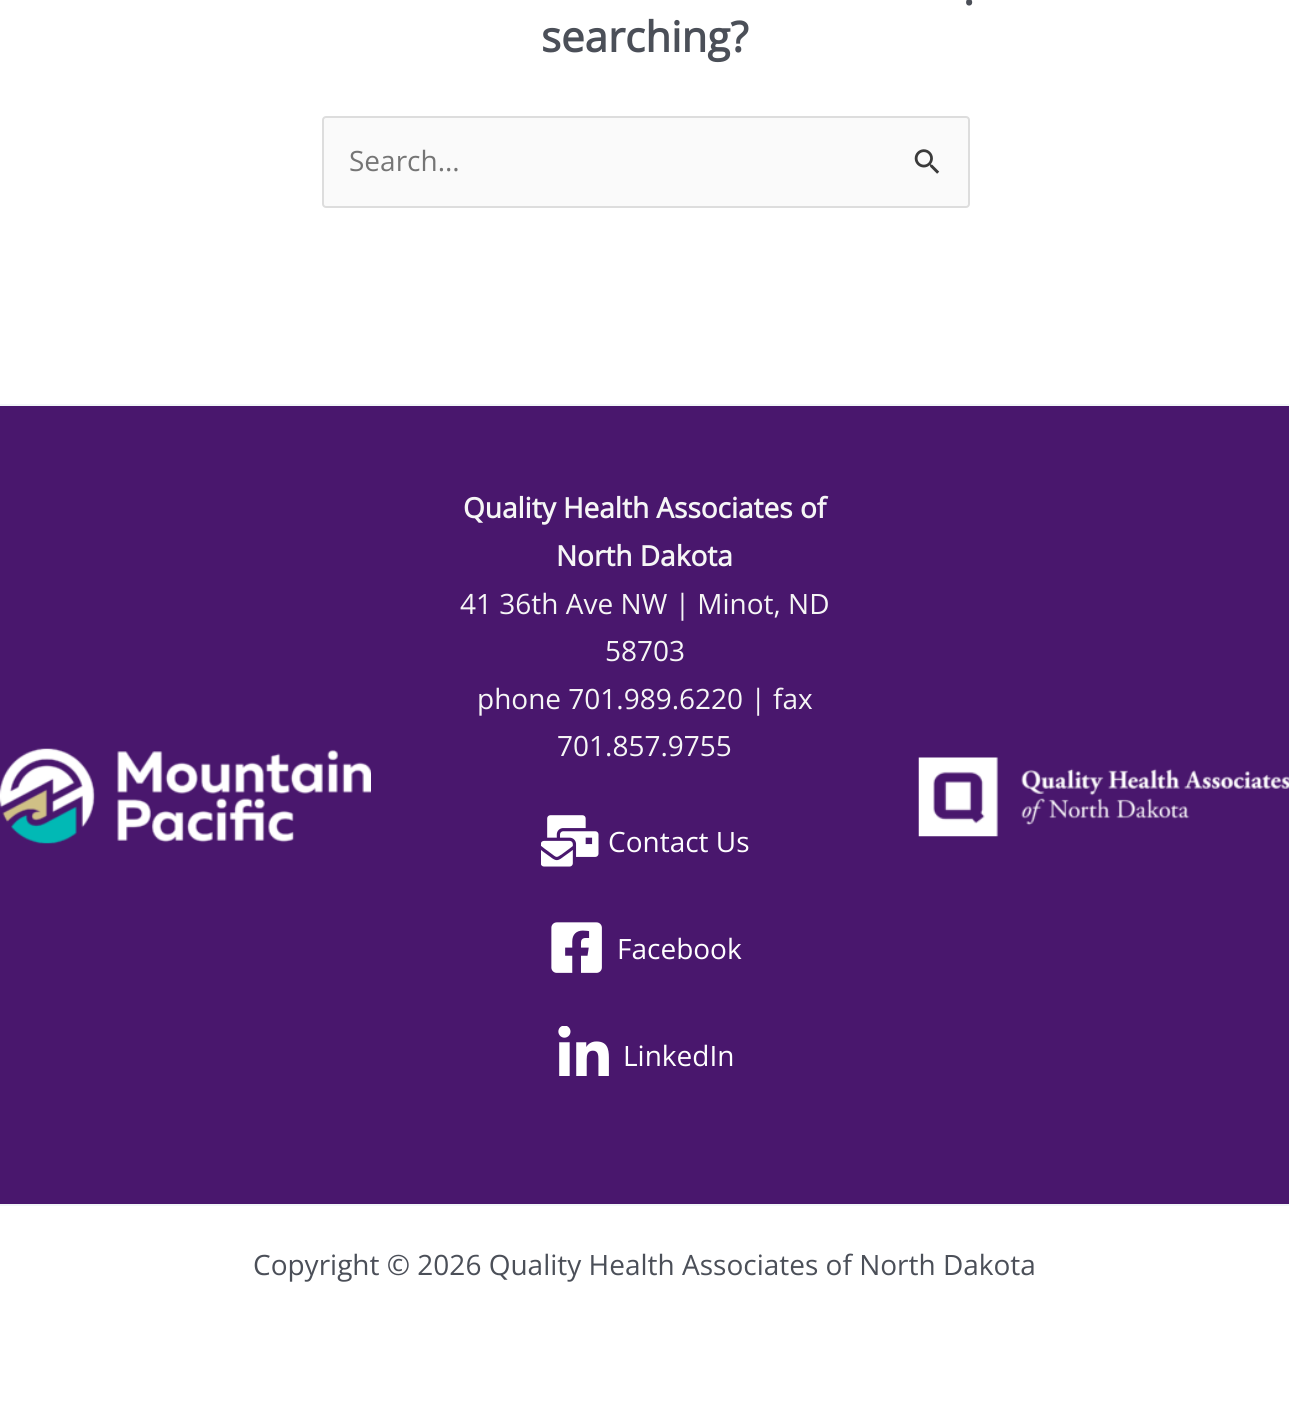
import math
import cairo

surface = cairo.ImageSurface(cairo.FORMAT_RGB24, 1289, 1415)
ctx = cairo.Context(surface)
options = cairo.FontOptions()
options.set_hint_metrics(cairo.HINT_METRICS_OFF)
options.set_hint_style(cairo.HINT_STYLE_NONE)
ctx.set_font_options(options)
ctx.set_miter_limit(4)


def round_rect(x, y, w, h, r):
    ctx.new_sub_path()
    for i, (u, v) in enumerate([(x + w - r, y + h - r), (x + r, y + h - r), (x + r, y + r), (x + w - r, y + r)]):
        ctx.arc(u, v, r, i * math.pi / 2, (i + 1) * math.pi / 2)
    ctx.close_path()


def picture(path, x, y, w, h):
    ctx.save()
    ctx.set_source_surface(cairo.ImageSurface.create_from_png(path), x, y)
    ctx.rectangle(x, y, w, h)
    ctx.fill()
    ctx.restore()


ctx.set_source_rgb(1, 1, 1)
ctx.paint()
ctx.select_font_face("Open Sans", cairo.FONT_SLANT_NORMAL, cairo.FONT_WEIGHT_BOLD)
ctx.set_font_size(42)
ctx.set_source_rgb(0.294, 0.31, 0.345)
ctx.move_to(963, 5)
ctx.show_text(".")
ctx.move_to(541, 52)
ctx.show_text("searching?")
ctx.set_source_rgb(0.98, 0.98, 0.98)
round_rect(323, 117, 646, 90, 3)
ctx.fill_preserve()
ctx.set_source_rgb(0.867, 0.867, 0.867)
ctx.stroke()
ctx.select_font_face("Open Sans")
ctx.set_font_size(28)
ctx.set_source_rgb(0.459, 0.459, 0.459)
ctx.move_to(349, 171)
ctx.show_text("Search...")
picture("img1.png", 914, 149, 26, 25)
ctx.set_source_rgb(0.286, 0.09, 0.427)
ctx.rectangle(0, 406, 1289, 798)
ctx.fill()
ctx.set_source_rgb(0.949, 0.961, 0.969)
ctx.rectangle(0, 404, 1289, 2)
ctx.fill()
picture("img2.png", 0, 748, 371, 96)
ctx.select_font_face("Open Sans", cairo.FONT_SLANT_NORMAL, cairo.FONT_WEIGHT_BOLD)
ctx.set_source_rgb(0.961, 0.961, 0.961)
ctx.move_to(463, 518)
ctx.show_text("Quality Health Associates of")
ctx.move_to(556, 566)
ctx.show_text("North Dakota")
ctx.select_font_face("Open Sans")
ctx.move_to(460, 614)
ctx.show_text("41 36th Ave NW | Minot, ND")
ctx.move_to(605, 661)
ctx.show_text("58703")
ctx.move_to(477, 709)
ctx.show_text("phone 701.989.6220 | fax")
ctx.move_to(557, 756)
ctx.show_text("701.857.9755")
picture("img3.png", 541, 815, 58, 52)
ctx.set_source_rgb(1, 1, 1)
ctx.move_to(608, 852)
ctx.show_text("Contact Us")
picture("img4.png", 551, 922, 51, 51)
ctx.move_to(617, 959)
ctx.show_text("Facebook")
picture("img5.png", 558, 1026, 51, 50)
ctx.move_to(623, 1066)
ctx.show_text("LinkedIn")
picture("img6.png", 918, 757, 371, 80)
ctx.set_source_rgb(0.949, 0.961, 0.969)
ctx.rectangle(0, 1204, 1289, 2)
ctx.fill()
ctx.set_source_rgb(0.294, 0.31, 0.345)
ctx.move_to(253, 1275)
ctx.show_text("Copyright © 2026 Quality Health Associates of North Dakota")
surface.write_to_png("page.png")
